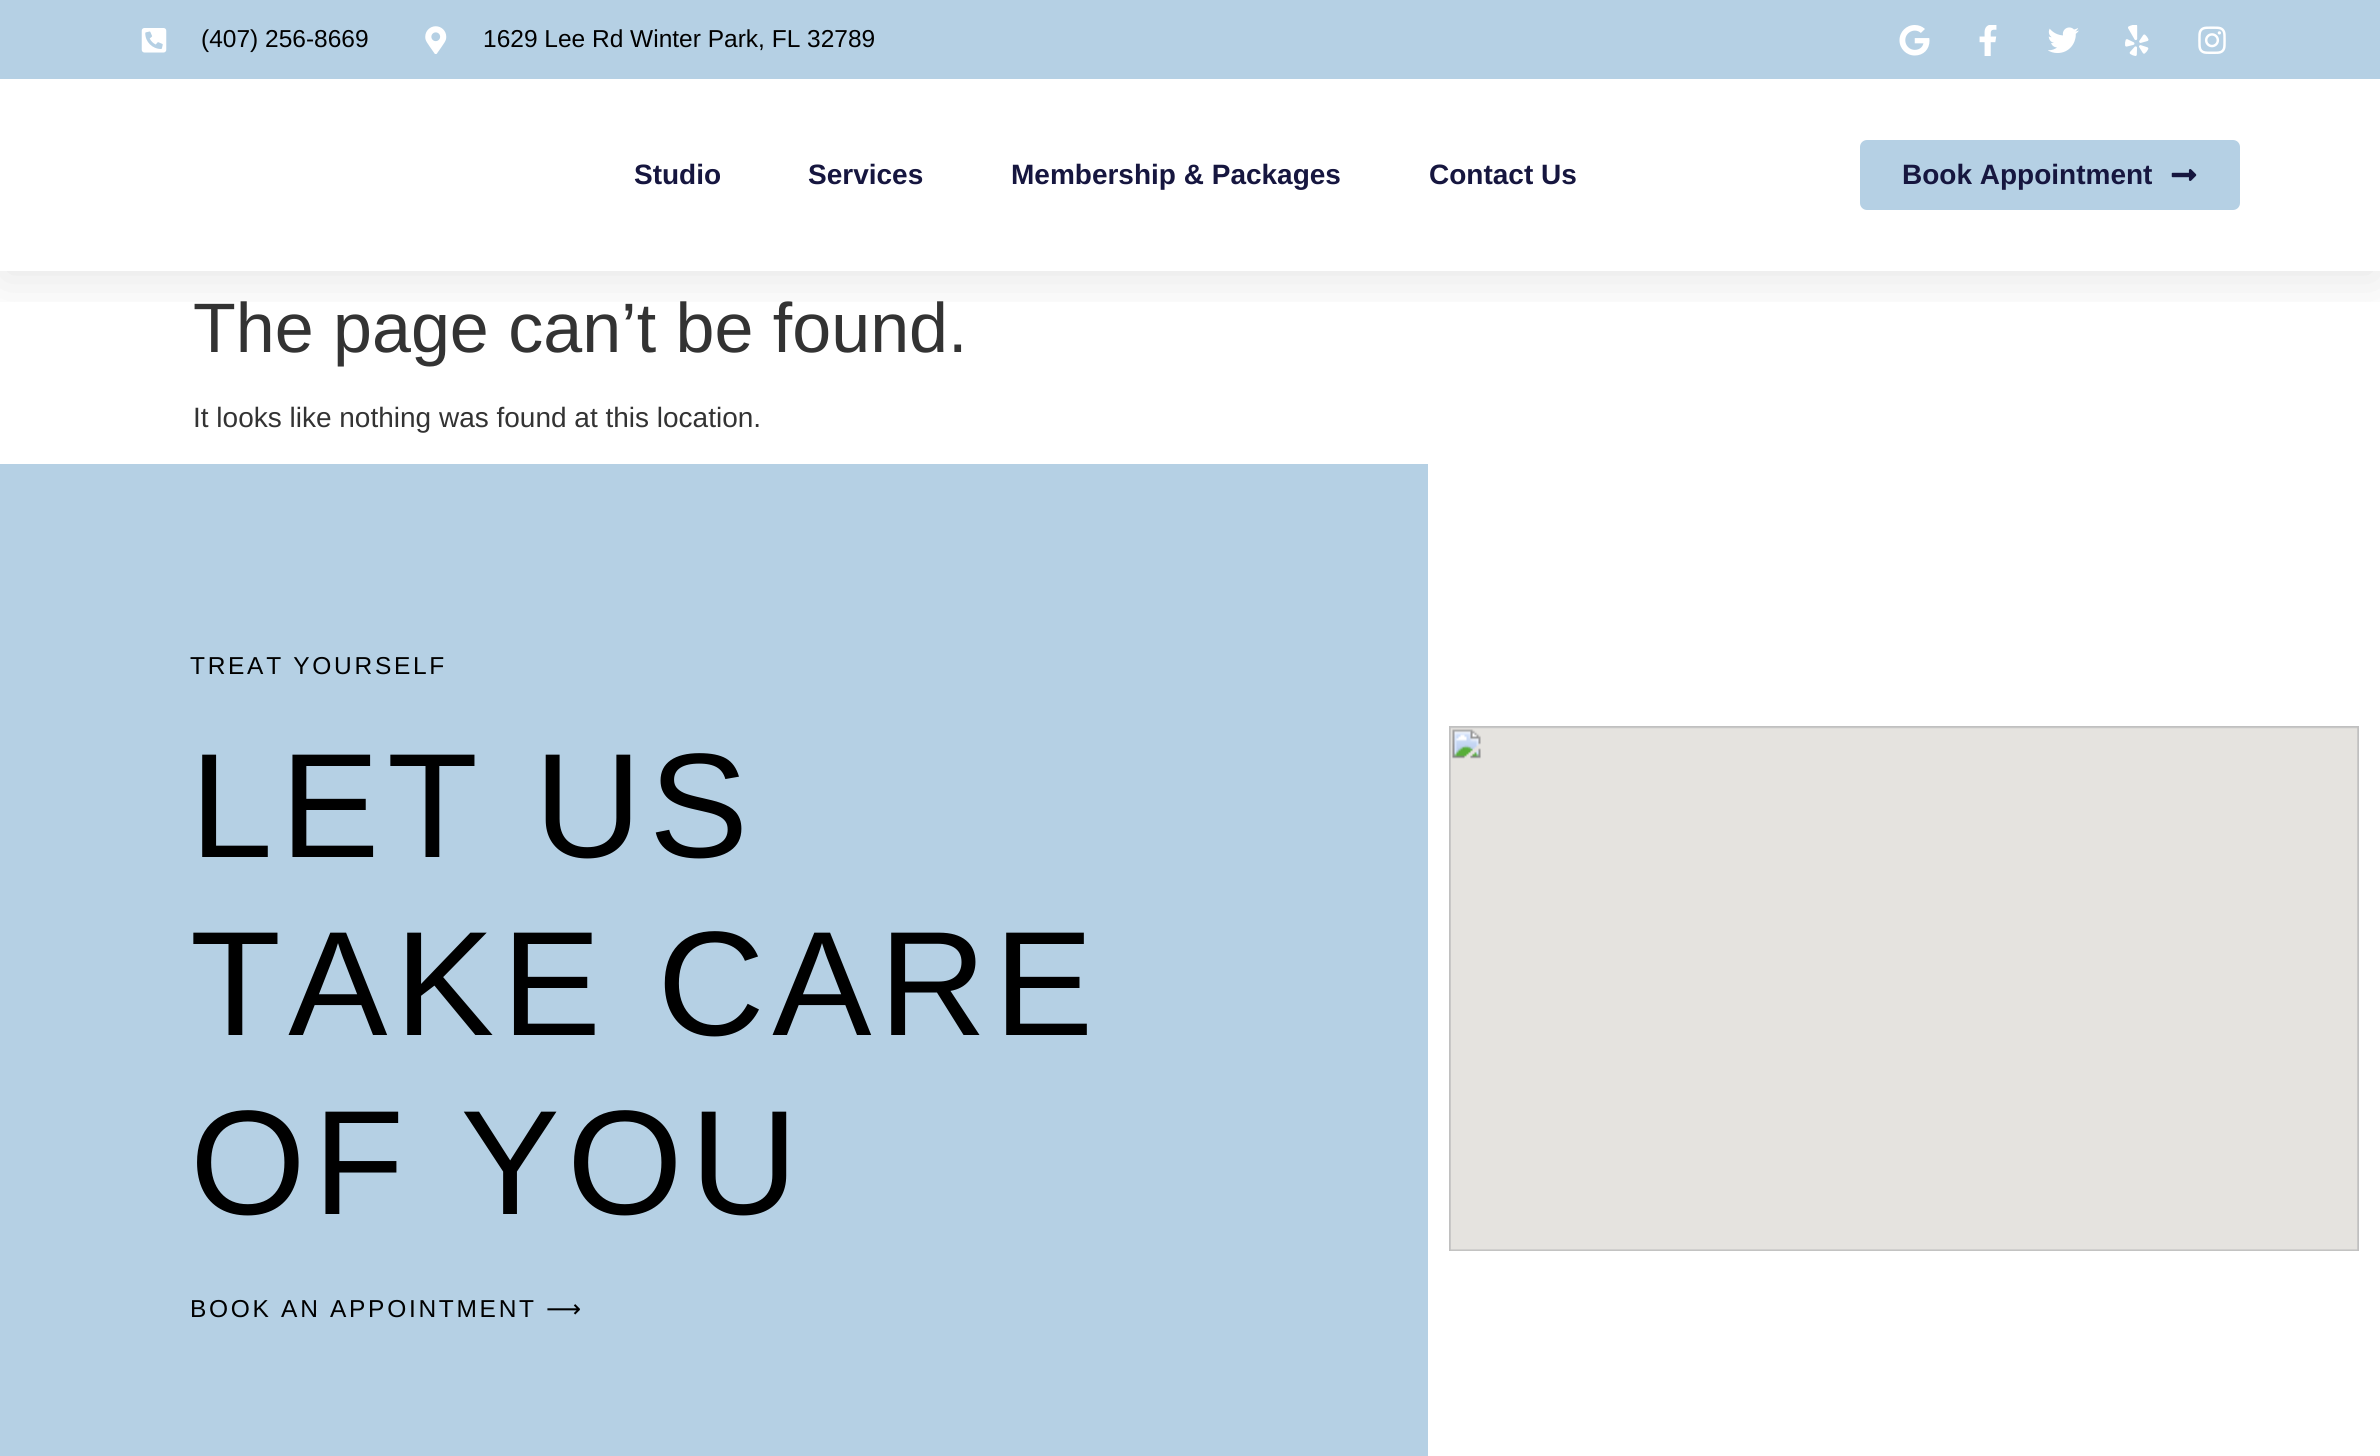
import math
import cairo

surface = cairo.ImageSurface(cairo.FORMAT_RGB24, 2380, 1456)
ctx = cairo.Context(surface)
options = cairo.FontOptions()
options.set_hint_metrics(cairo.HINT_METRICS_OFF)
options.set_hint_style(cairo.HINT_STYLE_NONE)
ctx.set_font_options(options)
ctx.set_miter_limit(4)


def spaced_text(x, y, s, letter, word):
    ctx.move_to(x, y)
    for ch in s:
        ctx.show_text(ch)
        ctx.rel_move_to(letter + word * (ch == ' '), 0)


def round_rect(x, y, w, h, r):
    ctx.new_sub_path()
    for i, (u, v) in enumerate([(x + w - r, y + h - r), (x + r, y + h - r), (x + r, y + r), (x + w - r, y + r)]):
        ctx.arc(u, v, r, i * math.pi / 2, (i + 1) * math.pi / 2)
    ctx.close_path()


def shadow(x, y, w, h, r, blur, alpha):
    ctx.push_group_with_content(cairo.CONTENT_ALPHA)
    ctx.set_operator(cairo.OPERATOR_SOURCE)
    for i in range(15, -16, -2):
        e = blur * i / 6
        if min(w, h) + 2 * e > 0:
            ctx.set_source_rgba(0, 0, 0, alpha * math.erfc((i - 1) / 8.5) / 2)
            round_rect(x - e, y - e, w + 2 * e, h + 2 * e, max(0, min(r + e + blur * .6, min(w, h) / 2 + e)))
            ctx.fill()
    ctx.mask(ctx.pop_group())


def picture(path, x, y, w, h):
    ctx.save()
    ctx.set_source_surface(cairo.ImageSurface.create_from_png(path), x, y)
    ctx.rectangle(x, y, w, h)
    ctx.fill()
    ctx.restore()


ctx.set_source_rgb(1, 1, 1)
ctx.paint()
ctx.save()
ctx.rectangle(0, 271, 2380, 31)
ctx.clip()
ctx.set_source_rgb(0, 0, 0)
shadow(0, 9, 2380, 271, 0, 26, 0.1)
ctx.restore()
ctx.set_source_rgb(0.71, 0.816, 0.894)
ctx.rectangle(0, 0, 2380, 79)
ctx.fill()
picture("img1.png", 141, 28, 26, 25)
ctx.select_font_face("Liberation Sans")
ctx.set_font_size(24.5)
ctx.set_source_rgb(0, 0, 0)
ctx.move_to(201, 47)
ctx.show_text("(407) 256-8669")
picture("img2.png", 425, 26, 22, 28)
ctx.move_to(483, 47)
ctx.show_text("1629 Lee Rd Winter Park, FL 32789")
picture("img3.png", 1899, 25, 31, 31)
picture("img4.png", 1979, 25, 18, 31)
picture("img5.png", 2048, 27, 31, 26)
picture("img6.png", 2125, 25, 24, 31)
picture("img7.png", 2198, 26, 28, 28)
ctx.select_font_face("Liberation Sans", cairo.FONT_SLANT_NORMAL, cairo.FONT_WEIGHT_BOLD)
ctx.set_font_size(28)
ctx.set_source_rgb(0.086, 0.086, 0.247)
ctx.move_to(634, 184)
ctx.show_text("Studio")
ctx.move_to(808, 184)
ctx.show_text("Services")
ctx.move_to(1011, 184)
ctx.show_text("Membership & Packages")
ctx.move_to(1429, 184)
ctx.show_text("Contact Us")
ctx.set_source_rgb(0.71, 0.816, 0.894)
round_rect(1860, 140, 380, 70, 7)
ctx.fill()
ctx.set_source_rgb(0.086, 0.086, 0.247)
ctx.move_to(1902, 184)
ctx.show_text("Book Appointment")
picture("img8.png", 2171, 169, 26, 12)
ctx.select_font_face("Liberation Sans")
ctx.set_font_size(70)
ctx.set_source_rgb(0.2, 0.2, 0.2)
ctx.move_to(193, 352)
ctx.show_text("The page can’t be found.")
ctx.set_font_size(28)
ctx.move_to(193, 427)
ctx.show_text("It looks like nothing was found at this location.")
ctx.set_source_rgb(0.71, 0.816, 0.894)
ctx.rectangle(0, 464, 1428, 992)
ctx.fill()
ctx.set_font_size(24.5)
ctx.set_source_rgb(0, 0, 0)
spaced_text(190, 674, "TREAT YOURSELF", 2.7, 0)
ctx.set_font_size(148.75)
spaced_text(190, 857, "LET US", 7.5, 0)
spaced_text(190, 1035, "TAKE CARE", 7.5, 0)
spaced_text(190, 1214, "OF YOU", 7.5, 0)
ctx.set_font_size(24.5)
spaced_text(190, 1317, "BOOK AN APPOINTMENT", 2.7, 0)
ctx.select_font_face("DejaVu Sans")
spaced_text(546, 1317, "⟶", 2.7, 0)
picture("img9.png", 1449, 726, 910, 525)
surface.write_to_png("page.png")
